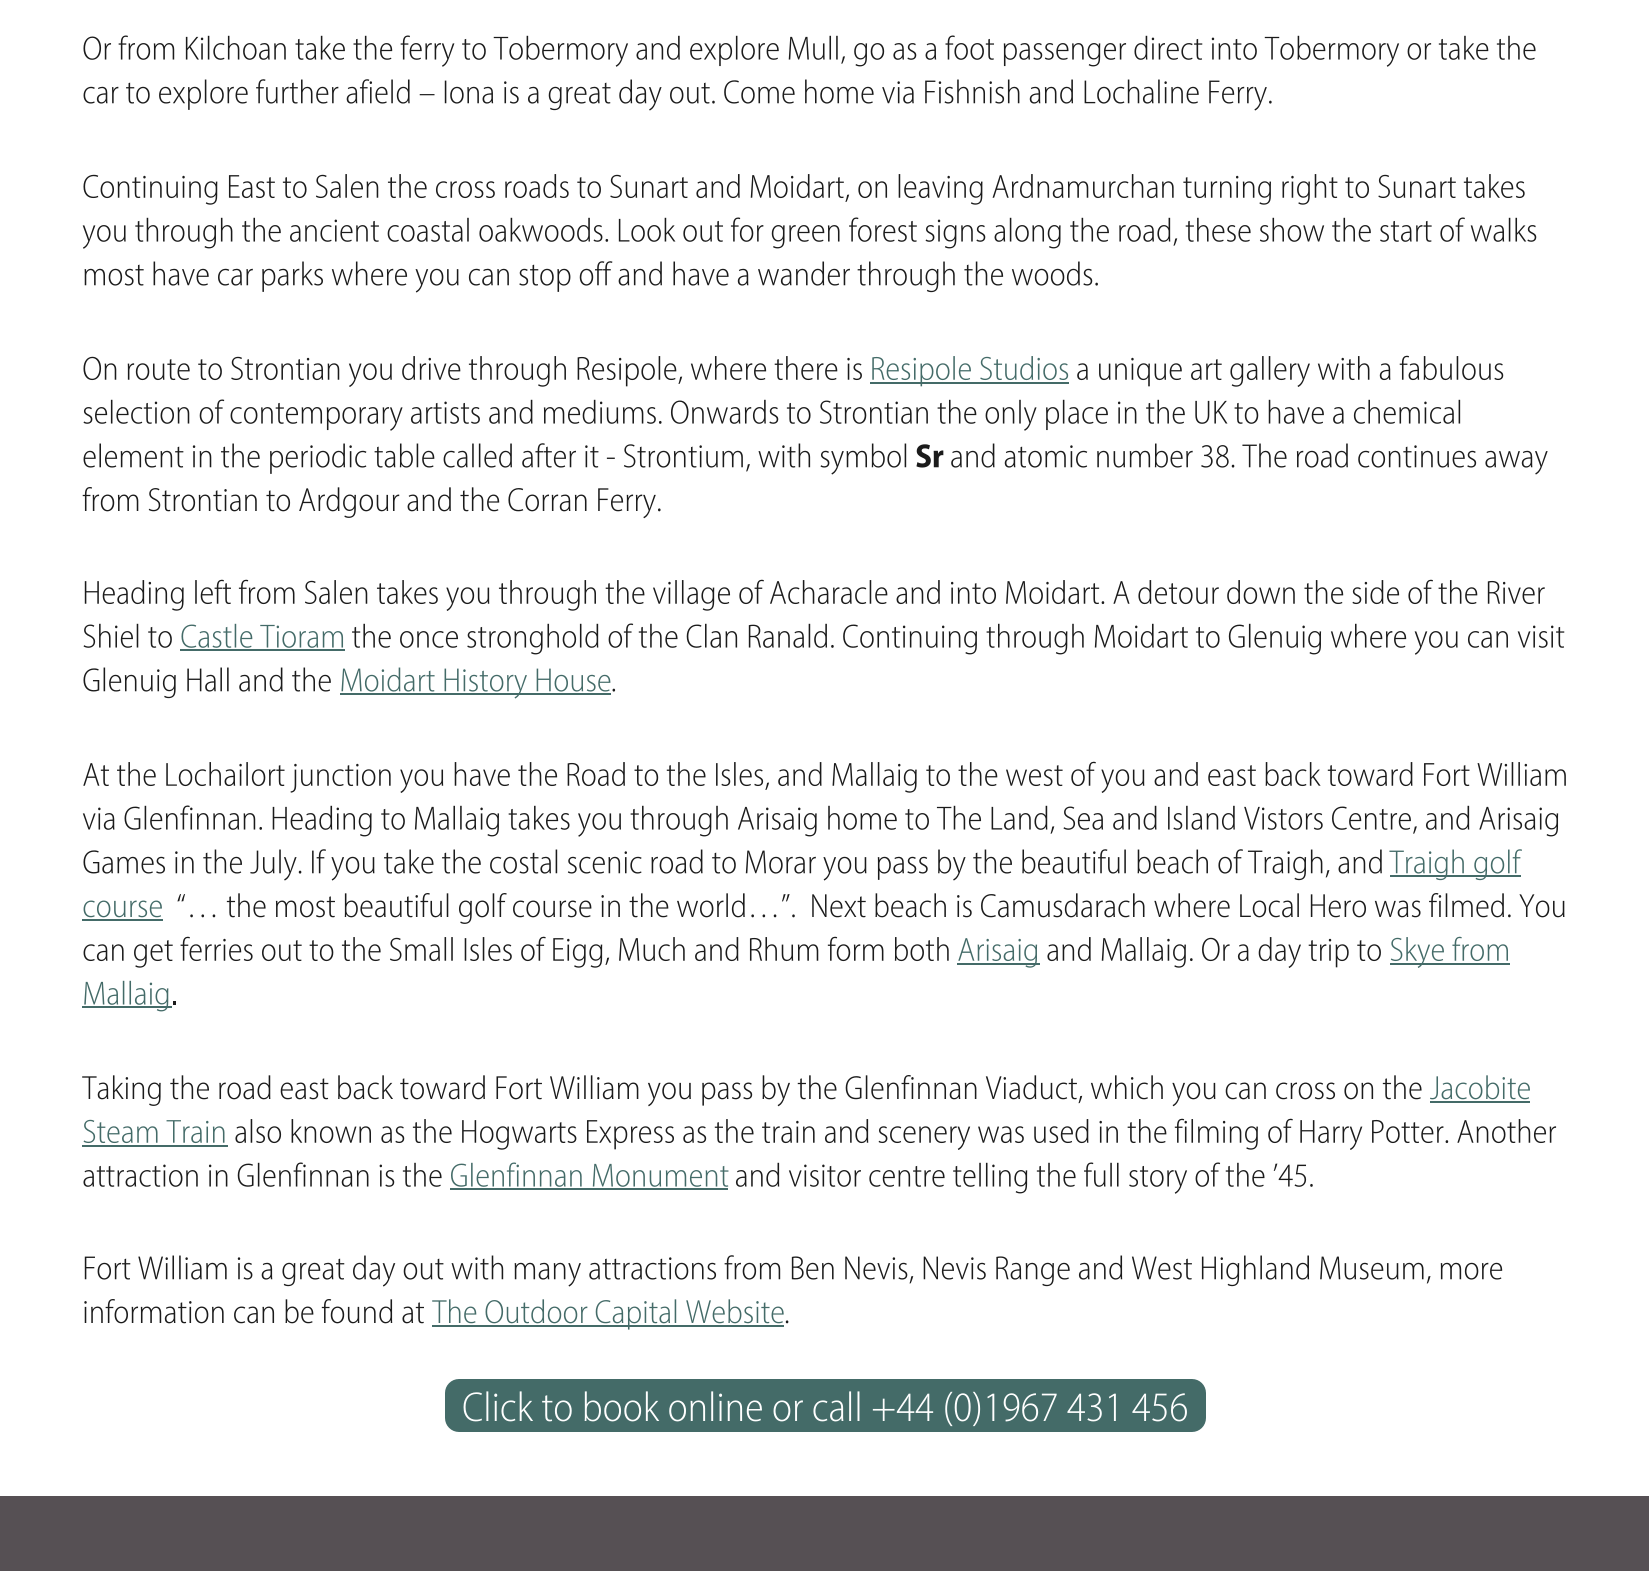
import math
import cairo

surface = cairo.ImageSurface(cairo.FORMAT_RGB24, 1649, 1571)
ctx = cairo.Context(surface)
options = cairo.FontOptions()
options.set_hint_metrics(cairo.HINT_METRICS_OFF)
options.set_hint_style(cairo.HINT_STYLE_NONE)
ctx.set_font_options(options)
ctx.set_miter_limit(4)


def round_rect(x, y, w, h, r):
    ctx.new_sub_path()
    for i, (u, v) in enumerate([(x + w - r, y + h - r), (x + r, y + h - r), (x + r, y + r), (x + w - r, y + r)]):
        ctx.arc(u, v, r, i * math.pi / 2, (i + 1) * math.pi / 2)
    ctx.close_path()


def picture(path, x, y, w, h):
    ctx.save()
    ctx.set_source_surface(cairo.ImageSurface.create_from_png(path), x, y)
    ctx.rectangle(x, y, w, h)
    ctx.fill()
    ctx.restore()


ctx.set_source_rgb(1, 1, 1)
ctx.paint()
picture("img1.png", 83, 35, 1453, 32)
picture("img2.png", 83, 79, 1189, 32)
picture("img3.png", 83, 174, 1442, 31)
picture("img4.png", 82, 217, 1455, 32)
picture("img5.png", 84, 261, 1014, 32)
picture("img6.png", 83, 356, 779, 31)
ctx.set_source_rgb(0.267, 0.42, 0.408)
ctx.rectangle(870, 382, 199, 2)
ctx.fill()
picture("img7.png", 872, 356, 197, 31)
picture("img8.png", 1077, 355, 427, 32)
picture("img9.png", 83, 399, 1378, 32)
picture("img10.png", 83, 443, 824, 32)
picture("img11.png", 916, 444, 28, 24)
picture("img12.png", 951, 443, 597, 32)
picture("img13.png", 82, 487, 579, 32)
picture("img14.png", 84, 579, 1461, 32)
picture("img15.png", 83, 623, 89, 25)
picture("img16.png", 181, 623, 163, 25)
picture("img17.png", 352, 623, 1213, 32)
ctx.rectangle(180, 649, 165, 2)
ctx.fill()
picture("img18.png", 83, 667, 248, 32)
ctx.rectangle(340, 693, 271, 2)
ctx.fill()
picture("img19.png", 341, 667, 270, 32)
picture("img20.png", 612, 688, 4, 4)
picture("img21.png", 83, 761, 1483, 32)
picture("img22.png", 82, 805, 1477, 32)
picture("img23.png", 83, 849, 1299, 32)
ctx.rectangle(1390, 875, 131, 2)
ctx.fill()
picture("img24.png", 1389, 849, 133, 32)
picture("img25.png", 83, 900, 79, 18)
picture("img26.png", 177, 893, 1388, 31)
ctx.rectangle(82, 919, 81, 2)
ctx.fill()
picture("img27.png", 83, 936, 866, 32)
ctx.rectangle(957, 963, 83, 2)
ctx.fill()
picture("img28.png", 958, 938, 80, 30)
picture("img29.png", 1047, 937, 334, 31)
ctx.rectangle(1390, 963, 120, 2)
ctx.fill()
picture("img30.png", 1390, 936, 118, 32)
ctx.rectangle(82, 1006, 90, 2)
ctx.fill()
picture("img31.png", 84, 980, 85, 32)
ctx.set_source_rgb(0.106, 0.106, 0.106)
ctx.rectangle(173, 1001, 3, 4)
ctx.fill()
picture("img32.png", 82, 1075, 1340, 32)
picture("img33.png", 1430, 1075, 100, 25)
ctx.set_source_rgb(0.267, 0.42, 0.408)
ctx.rectangle(1430, 1101, 100, 2)
ctx.fill()
picture("img34.png", 83, 1119, 142, 25)
picture("img35.png", 235, 1118, 1322, 32)
ctx.rectangle(82, 1145, 146, 2)
ctx.fill()
picture("img36.png", 83, 1162, 359, 25)
picture("img37.png", 451, 1162, 278, 25)
picture("img38.png", 735, 1162, 578, 32)
ctx.rectangle(450, 1188, 278, 2)
ctx.fill()
picture("img39.png", 84, 1255, 1419, 32)
picture("img40.png", 84, 1299, 340, 25)
ctx.rectangle(432, 1325, 352, 2)
ctx.fill()
picture("img41.png", 432, 1299, 352, 31)
picture("img42.png", 785, 1320, 4, 4)
round_rect(445, 1379, 761, 53, 14)
ctx.fill()
picture("img43.png", 463, 1391, 724, 36)
ctx.set_source_rgb(0.337, 0.314, 0.329)
ctx.rectangle(0, 1496, 1649, 75)
ctx.fill()
surface.write_to_png("page.png")
